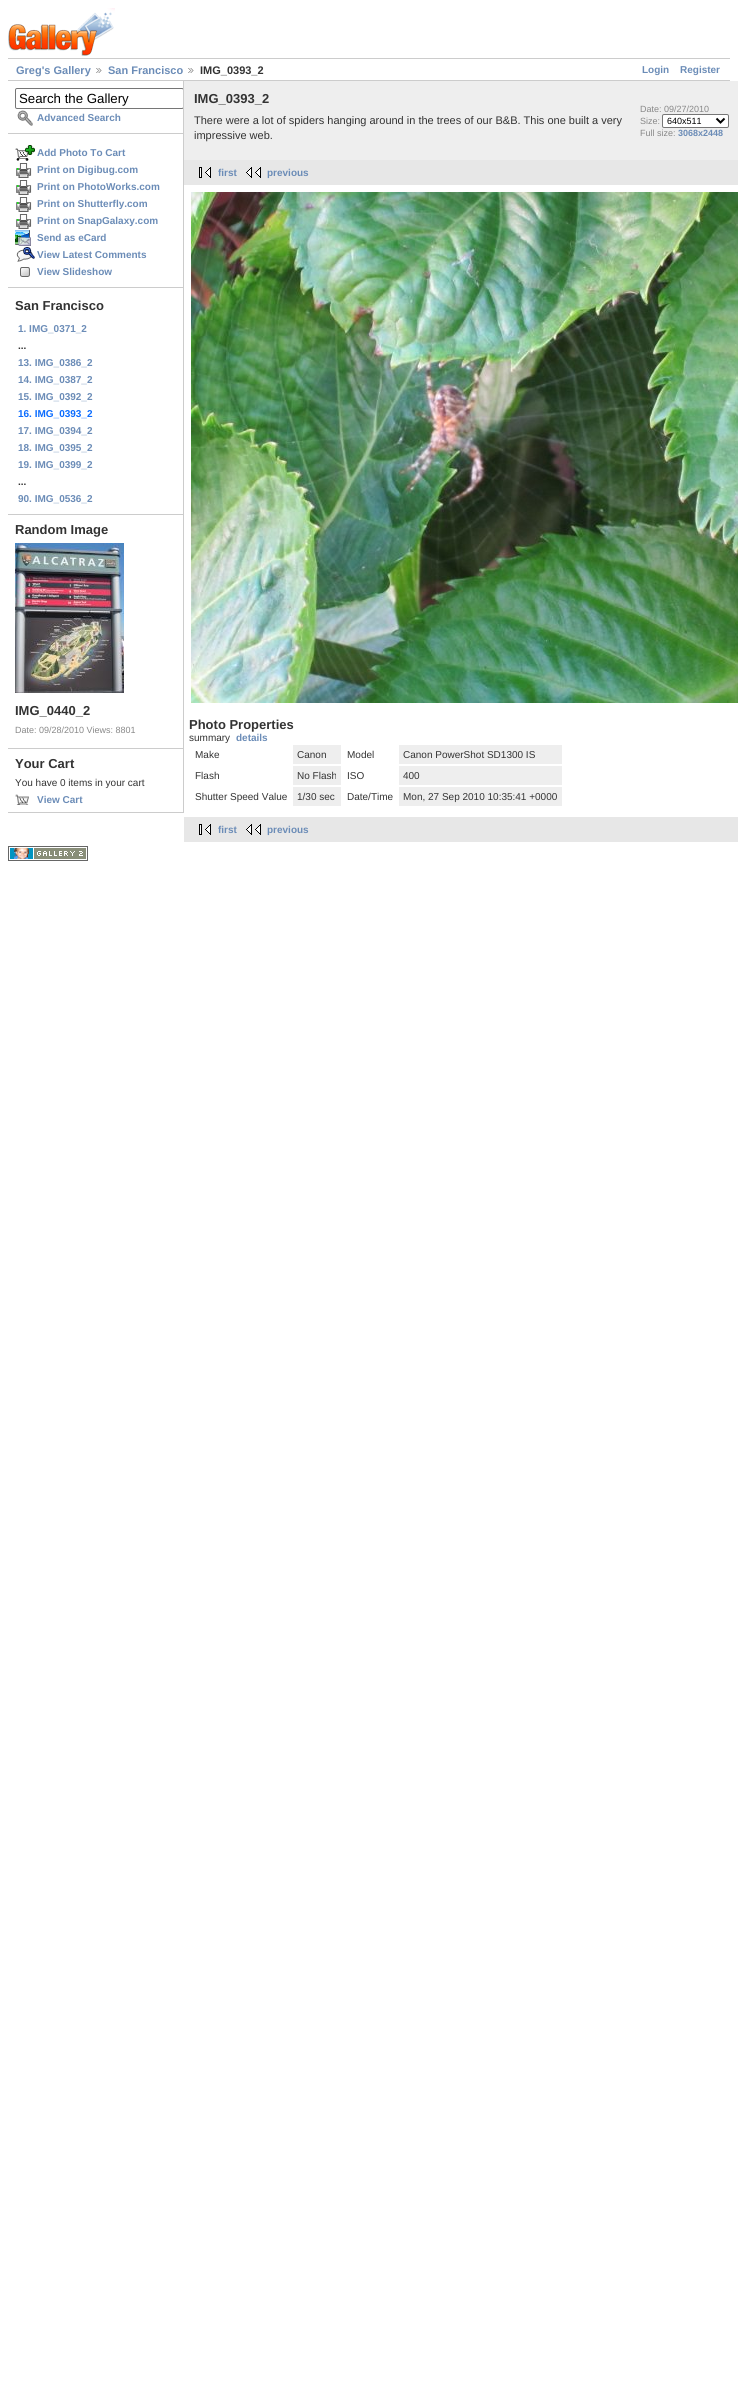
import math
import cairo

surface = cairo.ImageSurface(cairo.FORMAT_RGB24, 738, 2382)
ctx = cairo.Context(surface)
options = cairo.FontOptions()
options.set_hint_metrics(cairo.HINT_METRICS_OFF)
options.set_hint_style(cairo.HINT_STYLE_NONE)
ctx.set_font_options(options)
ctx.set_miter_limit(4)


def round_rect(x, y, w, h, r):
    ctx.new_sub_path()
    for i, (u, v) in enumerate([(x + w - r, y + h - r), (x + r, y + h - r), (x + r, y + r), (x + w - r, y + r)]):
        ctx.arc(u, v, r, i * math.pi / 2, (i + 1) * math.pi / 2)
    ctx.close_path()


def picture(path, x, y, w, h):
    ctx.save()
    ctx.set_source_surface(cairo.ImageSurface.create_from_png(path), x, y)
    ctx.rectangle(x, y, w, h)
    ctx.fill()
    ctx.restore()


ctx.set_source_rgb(1, 1, 1)
ctx.paint()
picture("img1.png", 8, 8, 107, 48)
ctx.set_source_rgb(0.8, 0.8, 0.8)
ctx.rectangle(8, 58, 722, 1)
ctx.fill()
ctx.rectangle(8, 80, 722, 1)
ctx.fill()
ctx.select_font_face("Liberation Sans", cairo.FONT_SLANT_NORMAL, cairo.FONT_WEIGHT_BOLD)
ctx.set_font_size(11)
ctx.set_source_rgb(0.42, 0.549, 0.718)
ctx.move_to(16, 74)
ctx.show_text("Greg's Gallery")
picture("img2.png", 96, 68, 6, 5)
ctx.move_to(108, 74)
ctx.show_text("San Francisco")
picture("img2.png", 188, 68, 6, 5)
ctx.set_source_rgb(0.2, 0.2, 0.2)
ctx.move_to(200, 74)
ctx.show_text("IMG_0393_2")
ctx.set_font_size(10)
ctx.set_source_rgb(0.42, 0.549, 0.718)
ctx.move_to(642, 73)
ctx.show_text("Login")
ctx.move_to(680, 73)
ctx.show_text("Register")
ctx.set_source_rgb(0.8, 0.8, 0.8)
ctx.rectangle(183, 81, 1, 732)
ctx.fill()
ctx.rectangle(8, 133, 175, 1)
ctx.fill()
ctx.save()
ctx.rectangle(8, 81, 175, 732)
ctx.clip()
round_rect(15.5, 88.5, 168, 20, 1.5)
ctx.set_source_rgb(0.463, 0.463, 0.463)
ctx.set_line_width(1)
ctx.stroke()
ctx.restore()
ctx.select_font_face("Liberation Sans")
ctx.set_font_size(13.25)
ctx.set_source_rgb(0, 0, 0)
ctx.move_to(19, 103)
ctx.show_text("Search the Gallery")
picture("img3.png", 17, 110, 16, 16)
ctx.select_font_face("Liberation Sans", cairo.FONT_SLANT_NORMAL, cairo.FONT_WEIGHT_BOLD)
ctx.set_font_size(10)
ctx.set_source_rgb(0.42, 0.549, 0.718)
ctx.move_to(37, 121)
ctx.show_text("Advanced Search")
ctx.set_source_rgb(0.8, 0.8, 0.8)
ctx.rectangle(8, 287, 175, 1)
ctx.fill()
picture("img4.png", 15, 145, 20, 16)
ctx.set_source_rgb(0.42, 0.549, 0.718)
ctx.move_to(37, 156)
ctx.show_text("Add Photo To Cart")
picture("img5.png", 16, 163, 16, 15)
ctx.move_to(37, 173)
ctx.show_text("Print on Digibug.com")
picture("img5.png", 16, 180, 16, 15)
ctx.move_to(37, 190)
ctx.show_text("Print on PhotoWorks.com")
picture("img5.png", 16, 197, 16, 15)
ctx.move_to(37, 207)
ctx.show_text("Print on Shutterfly.com")
picture("img5.png", 16, 214, 16, 15)
ctx.move_to(37, 224)
ctx.show_text("Print on SnapGalaxy.com")
picture("img6.png", 15, 230, 16, 16)
ctx.move_to(37, 241)
ctx.show_text("Send as eCard")
picture("img7.png", 16, 247, 19, 15)
ctx.move_to(37, 258)
ctx.show_text("View Latest Comments")
picture("img8.png", 20, 267, 10, 10)
ctx.move_to(37, 275)
ctx.show_text("View Slideshow")
ctx.set_source_rgb(0.8, 0.8, 0.8)
ctx.rectangle(8, 514, 175, 1)
ctx.fill()
ctx.set_font_size(13)
ctx.set_source_rgb(0.2, 0.2, 0.2)
ctx.move_to(15, 310)
ctx.show_text("San Francisco")
ctx.set_font_size(10)
ctx.set_source_rgb(0.42, 0.549, 0.718)
ctx.move_to(18, 332)
ctx.show_text("1. IMG_0371_2")
ctx.set_source_rgb(0.2, 0.2, 0.2)
ctx.move_to(18, 349)
ctx.show_text("...")
ctx.set_source_rgb(0.42, 0.549, 0.718)
ctx.move_to(18, 366)
ctx.show_text("13. IMG_0386_2")
ctx.move_to(18, 383)
ctx.show_text("14. IMG_0387_2")
ctx.move_to(18, 400)
ctx.show_text("15. IMG_0392_2")
ctx.set_source_rgb(0.043, 0.424, 1)
ctx.move_to(18, 417)
ctx.show_text("16. IMG_0393_2")
ctx.set_source_rgb(0.42, 0.549, 0.718)
ctx.move_to(18, 434)
ctx.show_text("17. IMG_0394_2")
ctx.move_to(18, 451)
ctx.show_text("18. IMG_0395_2")
ctx.move_to(18, 468)
ctx.show_text("19. IMG_0399_2")
ctx.set_source_rgb(0.2, 0.2, 0.2)
ctx.move_to(18, 485)
ctx.show_text("...")
ctx.set_source_rgb(0.42, 0.549, 0.718)
ctx.move_to(18, 502)
ctx.show_text("90. IMG_0536_2")
ctx.set_source_rgb(0.8, 0.8, 0.8)
ctx.rectangle(8, 748, 175, 1)
ctx.fill()
ctx.set_font_size(13)
ctx.set_source_rgb(0.2, 0.2, 0.2)
ctx.move_to(15, 534)
ctx.show_text("Random Image")
picture("img9.png", 15, 543, 109, 150)
ctx.move_to(15, 715)
ctx.show_text("IMG_0440_2")
ctx.select_font_face("Liberation Sans")
ctx.set_font_size(9)
ctx.set_source_rgb(0.533, 0.533, 0.533)
ctx.move_to(15, 733)
ctx.show_text("Date: 09/28/2010 Views: 8801")
ctx.set_source_rgb(0.8, 0.8, 0.8)
ctx.rectangle(8, 812, 175, 1)
ctx.fill()
ctx.select_font_face("Liberation Sans", cairo.FONT_SLANT_NORMAL, cairo.FONT_WEIGHT_BOLD)
ctx.set_font_size(13)
ctx.set_source_rgb(0.2, 0.2, 0.2)
ctx.move_to(15, 768)
ctx.show_text("Your Cart")
ctx.select_font_face("Liberation Sans")
ctx.set_font_size(10)
ctx.move_to(15, 786)
ctx.show_text("You have 0 items in your cart")
picture("img10.png", 15, 794, 14, 11)
ctx.select_font_face("Liberation Sans", cairo.FONT_SLANT_NORMAL, cairo.FONT_WEIGHT_BOLD)
ctx.set_source_rgb(0.42, 0.549, 0.718)
ctx.move_to(37, 803)
ctx.show_text("View Cart")
ctx.set_source_rgb(0.933, 0.933, 0.933)
ctx.rectangle(184, 81, 554, 79)
ctx.fill()
ctx.set_font_size(13)
ctx.set_source_rgb(0.2, 0.2, 0.2)
ctx.move_to(194, 103)
ctx.show_text("IMG_0393_2")
ctx.select_font_face("Liberation Sans")
ctx.set_font_size(11)
ctx.move_to(194, 124)
ctx.show_text("There were a lot of spiders hanging around in the trees of our B&B. This one built a very")
ctx.move_to(194, 139)
ctx.show_text("impressive web.")
ctx.set_font_size(9)
ctx.set_source_rgb(0.533, 0.533, 0.533)
ctx.move_to(640, 112)
ctx.show_text("Date: 09/27/2010")
ctx.move_to(640, 124)
ctx.show_text("Size:")
ctx.set_source_rgb(1, 1, 1)
round_rect(662.5, 114.5, 66, 13, 1.5)
ctx.fill_preserve()
ctx.set_source_rgb(0.463, 0.463, 0.463)
ctx.set_line_width(1)
ctx.stroke()
ctx.new_path()
ctx.move_to(716.5, 118.5)
ctx.line_to(720.5, 122.5)
ctx.line_to(724.5, 118.5)
ctx.set_source_rgb(0, 0, 0)
ctx.set_line_width(2)
ctx.stroke()
ctx.move_to(667, 124)
ctx.show_text("640x511")
ctx.set_source_rgb(0.533, 0.533, 0.533)
ctx.move_to(640, 136)
ctx.show_text("Full size:")
ctx.select_font_face("Liberation Sans", cairo.FONT_SLANT_NORMAL, cairo.FONT_WEIGHT_BOLD)
ctx.set_source_rgb(0.42, 0.549, 0.718)
ctx.move_to(678, 136)
ctx.show_text("3068x2448")
ctx.set_source_rgb(0.906, 0.906, 0.906)
ctx.rectangle(184, 160, 554, 25)
ctx.fill()
picture("img11.png", 199, 167, 12, 11)
ctx.set_font_size(10)
ctx.set_source_rgb(0.42, 0.549, 0.718)
ctx.move_to(218, 176)
ctx.show_text("first")
picture("img12.png", 246, 167, 15, 11)
ctx.move_to(267, 176)
ctx.show_text("previous")
picture("img13.png", 191, 192, 547, 511)
ctx.set_font_size(13)
ctx.set_source_rgb(0.2, 0.2, 0.2)
ctx.move_to(189, 729)
ctx.show_text("Photo Properties")
ctx.select_font_face("Liberation Sans")
ctx.set_font_size(10)
ctx.move_to(189, 741)
ctx.show_text("summary")
ctx.select_font_face("Liberation Sans", cairo.FONT_SLANT_NORMAL, cairo.FONT_WEIGHT_BOLD)
ctx.set_source_rgb(0.42, 0.549, 0.718)
ctx.move_to(236, 741)
ctx.show_text("details")
ctx.select_font_face("Liberation Sans")
ctx.set_source_rgb(0.2, 0.2, 0.2)
ctx.move_to(195, 758)
ctx.show_text("Make")
ctx.set_source_rgb(0.933, 0.933, 0.933)
ctx.rectangle(293, 745, 48, 19)
ctx.fill()
ctx.set_source_rgb(0.2, 0.2, 0.2)
ctx.move_to(297, 758)
ctx.show_text("Canon")
ctx.move_to(347, 758)
ctx.show_text("Model")
ctx.set_source_rgb(0.933, 0.933, 0.933)
ctx.rectangle(399, 745, 163, 19)
ctx.fill()
ctx.set_source_rgb(0.2, 0.2, 0.2)
ctx.move_to(403, 758)
ctx.show_text("Canon PowerShot SD1300 IS")
ctx.move_to(195, 779)
ctx.show_text("Flash")
ctx.set_source_rgb(0.933, 0.933, 0.933)
ctx.rectangle(293, 766, 48, 19)
ctx.fill()
ctx.set_source_rgb(0.2, 0.2, 0.2)
ctx.move_to(297, 779)
ctx.show_text("No Flash")
ctx.move_to(347, 779)
ctx.show_text("ISO")
ctx.set_source_rgb(0.933, 0.933, 0.933)
ctx.rectangle(399, 766, 163, 19)
ctx.fill()
ctx.set_source_rgb(0.2, 0.2, 0.2)
ctx.move_to(403, 779)
ctx.show_text("400")
ctx.move_to(195, 800)
ctx.show_text("Shutter Speed Value")
ctx.set_source_rgb(0.933, 0.933, 0.933)
ctx.rectangle(293, 787, 48, 19)
ctx.fill()
ctx.set_source_rgb(0.2, 0.2, 0.2)
ctx.move_to(297, 800)
ctx.show_text("1/30 sec")
ctx.move_to(347, 800)
ctx.show_text("Date/Time")
ctx.set_source_rgb(0.933, 0.933, 0.933)
ctx.rectangle(399, 787, 163, 19)
ctx.fill()
ctx.set_source_rgb(0.2, 0.2, 0.2)
ctx.move_to(403, 800)
ctx.show_text("Mon, 27 Sep 2010 10:35:41 +0000")
ctx.set_source_rgb(0.906, 0.906, 0.906)
ctx.rectangle(184, 817, 554, 25)
ctx.fill()
picture("img11.png", 199, 824, 12, 11)
ctx.select_font_face("Liberation Sans", cairo.FONT_SLANT_NORMAL, cairo.FONT_WEIGHT_BOLD)
ctx.set_source_rgb(0.42, 0.549, 0.718)
ctx.move_to(218, 833)
ctx.show_text("first")
picture("img12.png", 246, 824, 15, 11)
ctx.move_to(267, 833)
ctx.show_text("previous")
picture("img14.png", 8, 846, 80, 15)
surface.write_to_png("page.png")
